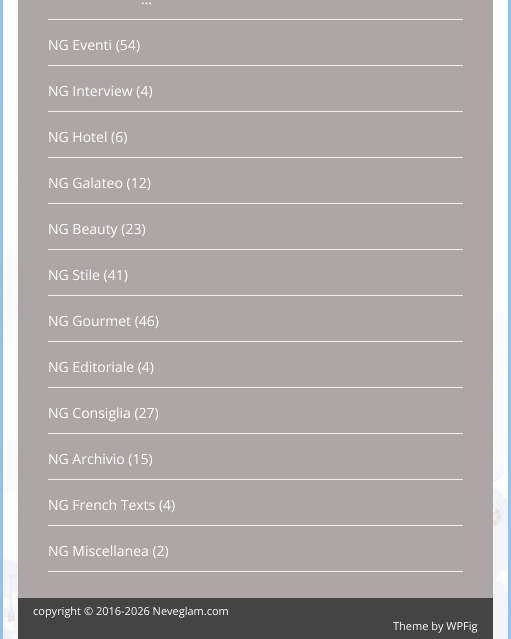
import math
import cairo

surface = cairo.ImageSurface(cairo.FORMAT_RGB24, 511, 639)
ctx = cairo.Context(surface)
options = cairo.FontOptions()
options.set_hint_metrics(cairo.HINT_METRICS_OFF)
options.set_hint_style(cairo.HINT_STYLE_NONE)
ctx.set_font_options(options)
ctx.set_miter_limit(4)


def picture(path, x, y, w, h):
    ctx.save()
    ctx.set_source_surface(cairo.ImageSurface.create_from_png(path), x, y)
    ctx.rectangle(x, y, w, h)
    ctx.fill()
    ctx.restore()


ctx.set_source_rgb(1, 1, 1)
ctx.paint()
picture("img1.png", 3, 0, 505, 639)
ctx.set_source_rgb(0.561, 0.761, 0.945)
ctx.rectangle(508, 0, 3, 639)
ctx.fill()
ctx.rectangle(0, 0, 3, 639)
ctx.fill()
ctx.set_source_rgb(0.678, 0.651, 0.651)
ctx.rectangle(18, 0, 475, 598)
ctx.fill()
ctx.set_source_rgb(0.937, 0.937, 0.937)
ctx.rectangle(48, 19, 415, 1)
ctx.fill()
ctx.select_font_face("Open Sans")
ctx.set_font_size(14)
ctx.set_source_rgb(1, 1, 1)
ctx.move_to(141, 4)
ctx.show_text("…")
ctx.set_source_rgb(0.937, 0.937, 0.937)
ctx.rectangle(48, 65, 415, 1)
ctx.fill()
ctx.set_source_rgb(1, 1, 1)
ctx.move_to(48, 50)
ctx.show_text("NG Eventi (54)")
ctx.set_source_rgb(0.937, 0.937, 0.937)
ctx.rectangle(48, 111, 415, 1)
ctx.fill()
ctx.set_source_rgb(1, 1, 1)
ctx.move_to(48, 96)
ctx.show_text("NG Interview (4)")
ctx.set_source_rgb(0.937, 0.937, 0.937)
ctx.rectangle(48, 157, 415, 1)
ctx.fill()
ctx.set_source_rgb(1, 1, 1)
ctx.move_to(48, 142)
ctx.show_text("NG Hotel (6)")
ctx.set_source_rgb(0.937, 0.937, 0.937)
ctx.rectangle(48, 203, 415, 1)
ctx.fill()
ctx.set_source_rgb(1, 1, 1)
ctx.move_to(48, 188)
ctx.show_text("NG Galateo (12)")
ctx.set_source_rgb(0.937, 0.937, 0.937)
ctx.rectangle(48, 249, 415, 1)
ctx.fill()
ctx.set_source_rgb(1, 1, 1)
ctx.move_to(48, 234)
ctx.show_text("NG Beauty (23)")
ctx.set_source_rgb(0.937, 0.937, 0.937)
ctx.rectangle(48, 295, 415, 1)
ctx.fill()
ctx.set_source_rgb(1, 1, 1)
ctx.move_to(48, 280)
ctx.show_text("NG Stile (41)")
ctx.set_source_rgb(0.937, 0.937, 0.937)
ctx.rectangle(48, 341, 415, 1)
ctx.fill()
ctx.set_source_rgb(1, 1, 1)
ctx.move_to(48, 326)
ctx.show_text("NG Gourmet (46)")
ctx.set_source_rgb(0.937, 0.937, 0.937)
ctx.rectangle(48, 387, 415, 1)
ctx.fill()
ctx.set_source_rgb(1, 1, 1)
ctx.move_to(48, 372)
ctx.show_text("NG Editoriale (4)")
ctx.set_source_rgb(0.937, 0.937, 0.937)
ctx.rectangle(48, 433, 415, 1)
ctx.fill()
ctx.set_source_rgb(1, 1, 1)
ctx.move_to(48, 418)
ctx.show_text("NG Consiglia (27)")
ctx.set_source_rgb(0.937, 0.937, 0.937)
ctx.rectangle(48, 479, 415, 1)
ctx.fill()
ctx.set_source_rgb(1, 1, 1)
ctx.move_to(48, 464)
ctx.show_text("NG Archivio (15)")
ctx.set_source_rgb(0.937, 0.937, 0.937)
ctx.rectangle(48, 525, 415, 1)
ctx.fill()
ctx.set_source_rgb(1, 1, 1)
ctx.move_to(48, 510)
ctx.show_text("NG French Texts (4)")
ctx.set_source_rgb(0.937, 0.937, 0.937)
ctx.rectangle(48, 571, 415, 1)
ctx.fill()
ctx.set_source_rgb(1, 1, 1)
ctx.move_to(48, 556)
ctx.show_text("NG Miscellanea (2)")
ctx.set_source_rgb(0.267, 0.267, 0.267)
ctx.rectangle(18, 598, 475, 41)
ctx.fill()
ctx.set_font_size(11)
ctx.set_source_rgb(1, 1, 1)
ctx.move_to(33, 615)
ctx.show_text("copyright © 2016-2026 Neveglam.com")
ctx.move_to(393, 630)
ctx.show_text("Theme by WPFig")
surface.write_to_png("page.png")
